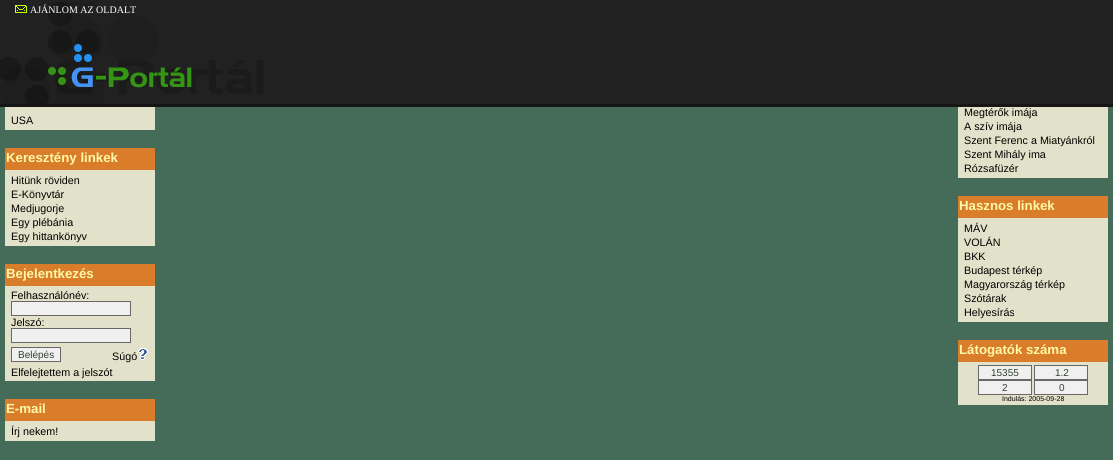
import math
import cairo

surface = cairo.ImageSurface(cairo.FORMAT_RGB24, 1113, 460)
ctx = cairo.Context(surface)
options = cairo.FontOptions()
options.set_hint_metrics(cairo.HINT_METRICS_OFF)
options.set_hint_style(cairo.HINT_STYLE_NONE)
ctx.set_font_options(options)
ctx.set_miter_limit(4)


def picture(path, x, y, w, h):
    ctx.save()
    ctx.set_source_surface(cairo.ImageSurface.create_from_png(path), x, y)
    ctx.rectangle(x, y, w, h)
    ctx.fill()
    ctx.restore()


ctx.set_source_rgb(0.267, 0.424, 0.349)
ctx.paint()
ctx.set_source_rgb(0.129, 0.129, 0.129)
ctx.rectangle(0, 0, 1113, 104)
ctx.fill()
ctx.set_source_rgb(0.086, 0.086, 0.086)
ctx.rectangle(0, 104, 1113, 3)
ctx.fill()
picture("img1.png", 0, 2, 263, 102)
picture("img2.png", 15, 5, 12, 8)
ctx.select_font_face("Liberation Serif")
ctx.set_font_size(10)
ctx.set_source_rgb(1, 1, 1)
ctx.move_to(30, 13)
ctx.show_text("AJÁNLOM AZ OLDALT")
ctx.set_source_rgb(0.886, 0.886, 0.792)
ctx.rectangle(5, 107, 150, 23)
ctx.fill()
ctx.select_font_face("Liberation Sans")
ctx.set_font_size(10.75)
ctx.set_source_rgb(0, 0, 0)
ctx.move_to(11, 124)
ctx.show_text("USA")
ctx.set_source_rgb(0.855, 0.49, 0.169)
ctx.rectangle(5, 148, 150, 22)
ctx.fill()
ctx.select_font_face("Liberation Sans", cairo.FONT_SLANT_NORMAL, cairo.FONT_WEIGHT_BOLD)
ctx.set_font_size(13.25)
ctx.set_source_rgb(1, 0.973, 0.655)
ctx.move_to(6, 162)
ctx.show_text("Keresztény linkek")
ctx.set_source_rgb(0.886, 0.886, 0.792)
ctx.rectangle(5, 170, 150, 76)
ctx.fill()
ctx.select_font_face("Liberation Sans")
ctx.set_font_size(10.75)
ctx.set_source_rgb(0, 0, 0)
ctx.move_to(11, 184)
ctx.show_text("Hitünk röviden")
ctx.move_to(11, 198)
ctx.show_text("E-Könyvtár")
ctx.move_to(11, 212)
ctx.show_text("Medjugorje")
ctx.move_to(11, 226)
ctx.show_text("Egy plébánia")
ctx.move_to(11, 240)
ctx.show_text("Egy hittankönyv")
ctx.set_source_rgb(0.855, 0.49, 0.169)
ctx.rectangle(5, 264, 150, 22)
ctx.fill()
ctx.select_font_face("Liberation Sans", cairo.FONT_SLANT_NORMAL, cairo.FONT_WEIGHT_BOLD)
ctx.set_font_size(13.25)
ctx.set_source_rgb(1, 0.973, 0.655)
ctx.move_to(6, 278)
ctx.show_text("Bejelentkezés")
ctx.set_source_rgb(0.886, 0.886, 0.792)
ctx.rectangle(5, 286, 150, 95)
ctx.fill()
ctx.select_font_face("Liberation Sans")
ctx.set_font_size(10.75)
ctx.set_source_rgb(0, 0, 0)
ctx.move_to(11, 299)
ctx.show_text("Felhasználónév:")
ctx.set_source_rgb(0.941, 0.941, 0.941)
ctx.rectangle(11.5, 301.5, 119, 14)
ctx.fill_preserve()
ctx.set_source_rgb(0.408, 0.408, 0.408)
ctx.set_line_width(1)
ctx.stroke()
ctx.set_source_rgb(0, 0, 0)
ctx.move_to(11, 326)
ctx.show_text("Jelszó:")
ctx.set_source_rgb(0.941, 0.941, 0.941)
ctx.rectangle(11.5, 328.5, 119, 14)
ctx.fill_preserve()
ctx.set_source_rgb(0.408, 0.408, 0.408)
ctx.stroke()
ctx.set_source_rgb(0.941, 0.941, 0.941)
ctx.rectangle(11.5, 347.5, 49, 14)
ctx.fill_preserve()
ctx.set_source_rgb(0.408, 0.408, 0.408)
ctx.stroke()
ctx.set_font_size(10)
ctx.set_source_rgb(0.192, 0.259, 0.192)
ctx.move_to(18, 358)
ctx.show_text("Belépés")
ctx.set_font_size(10.75)
ctx.set_source_rgb(0, 0, 0)
ctx.move_to(112, 360)
ctx.show_text("Súgó")
picture("img3.png", 138, 348, 10, 12)
ctx.move_to(11, 376)
ctx.show_text("Elfelejtettem a jelszót")
ctx.set_source_rgb(0.855, 0.49, 0.169)
ctx.rectangle(5, 399, 150, 22)
ctx.fill()
ctx.select_font_face("Liberation Sans", cairo.FONT_SLANT_NORMAL, cairo.FONT_WEIGHT_BOLD)
ctx.set_font_size(13.25)
ctx.set_source_rgb(1, 0.973, 0.655)
ctx.move_to(6, 413)
ctx.show_text("E-mail")
ctx.set_source_rgb(0.886, 0.886, 0.792)
ctx.rectangle(5, 421, 150, 20)
ctx.fill()
ctx.select_font_face("Liberation Sans")
ctx.set_font_size(10.75)
ctx.set_source_rgb(0, 0, 0)
ctx.move_to(11, 435)
ctx.show_text("Írj nekem!")
ctx.set_source_rgb(0.886, 0.886, 0.792)
ctx.rectangle(958, 107, 150, 71)
ctx.fill()
ctx.set_source_rgb(0, 0, 0)
ctx.move_to(964, 116)
ctx.show_text("Megtérők imája")
ctx.move_to(964, 130)
ctx.show_text("A szív imája")
ctx.move_to(964, 144)
ctx.show_text("Szent Ferenc a Miatyánkról")
ctx.move_to(964, 158)
ctx.show_text("Szent Mihály ima")
ctx.move_to(964, 172)
ctx.show_text("Rózsafüzér")
ctx.set_source_rgb(0.855, 0.49, 0.169)
ctx.rectangle(958, 196, 150, 22)
ctx.fill()
ctx.select_font_face("Liberation Sans", cairo.FONT_SLANT_NORMAL, cairo.FONT_WEIGHT_BOLD)
ctx.set_font_size(13.25)
ctx.set_source_rgb(1, 0.973, 0.655)
ctx.move_to(959, 210)
ctx.show_text("Hasznos linkek")
ctx.set_source_rgb(0.886, 0.886, 0.792)
ctx.rectangle(958, 218, 150, 104)
ctx.fill()
ctx.select_font_face("Liberation Sans")
ctx.set_font_size(10.75)
ctx.set_source_rgb(0, 0, 0)
ctx.move_to(964, 232)
ctx.show_text("MÁV")
ctx.move_to(964, 246)
ctx.show_text("VOLÁN")
ctx.move_to(964, 260)
ctx.show_text("BKK")
ctx.move_to(964, 274)
ctx.show_text("Budapest térkép")
ctx.move_to(964, 288)
ctx.show_text("Magyarország térkép")
ctx.move_to(964, 302)
ctx.show_text("Szótárak")
ctx.move_to(964, 316)
ctx.show_text("Helyesírás")
ctx.set_source_rgb(0.855, 0.49, 0.169)
ctx.rectangle(958, 340, 150, 22)
ctx.fill()
ctx.select_font_face("Liberation Sans", cairo.FONT_SLANT_NORMAL, cairo.FONT_WEIGHT_BOLD)
ctx.set_font_size(13.25)
ctx.set_source_rgb(1, 0.973, 0.655)
ctx.move_to(959, 354)
ctx.show_text("Látogatók száma")
ctx.set_source_rgb(0.886, 0.886, 0.792)
ctx.rectangle(958, 362, 150, 43)
ctx.fill()
ctx.set_source_rgb(0.941, 0.941, 0.941)
ctx.rectangle(978.5, 365.5, 53, 14)
ctx.fill_preserve()
ctx.set_source_rgb(0.408, 0.408, 0.408)
ctx.stroke()
ctx.select_font_face("Liberation Sans")
ctx.set_font_size(10)
ctx.set_source_rgb(0.192, 0.259, 0.192)
ctx.move_to(991, 376)
ctx.show_text("15355")
ctx.set_source_rgb(0.941, 0.941, 0.941)
ctx.rectangle(1034.5, 365.5, 53, 14)
ctx.fill_preserve()
ctx.set_source_rgb(0.408, 0.408, 0.408)
ctx.stroke()
ctx.set_source_rgb(0.192, 0.259, 0.192)
ctx.move_to(1055, 376)
ctx.show_text("1.2")
ctx.set_source_rgb(0.941, 0.941, 0.941)
ctx.rectangle(978.5, 380.5, 53, 14)
ctx.fill_preserve()
ctx.set_source_rgb(0.408, 0.408, 0.408)
ctx.stroke()
ctx.set_source_rgb(0.192, 0.259, 0.192)
ctx.move_to(1002, 391)
ctx.show_text("2")
ctx.set_source_rgb(0.941, 0.941, 0.941)
ctx.rectangle(1034.5, 380.5, 53, 14)
ctx.fill_preserve()
ctx.set_source_rgb(0.408, 0.408, 0.408)
ctx.stroke()
ctx.set_source_rgb(0.192, 0.259, 0.192)
ctx.move_to(1059, 391)
ctx.show_text("0")
ctx.set_font_size(7)
ctx.set_source_rgb(0, 0, 0)
ctx.move_to(1002, 401)
ctx.show_text("Indulás: 2005-09-28")
surface.write_to_png("page.png")
